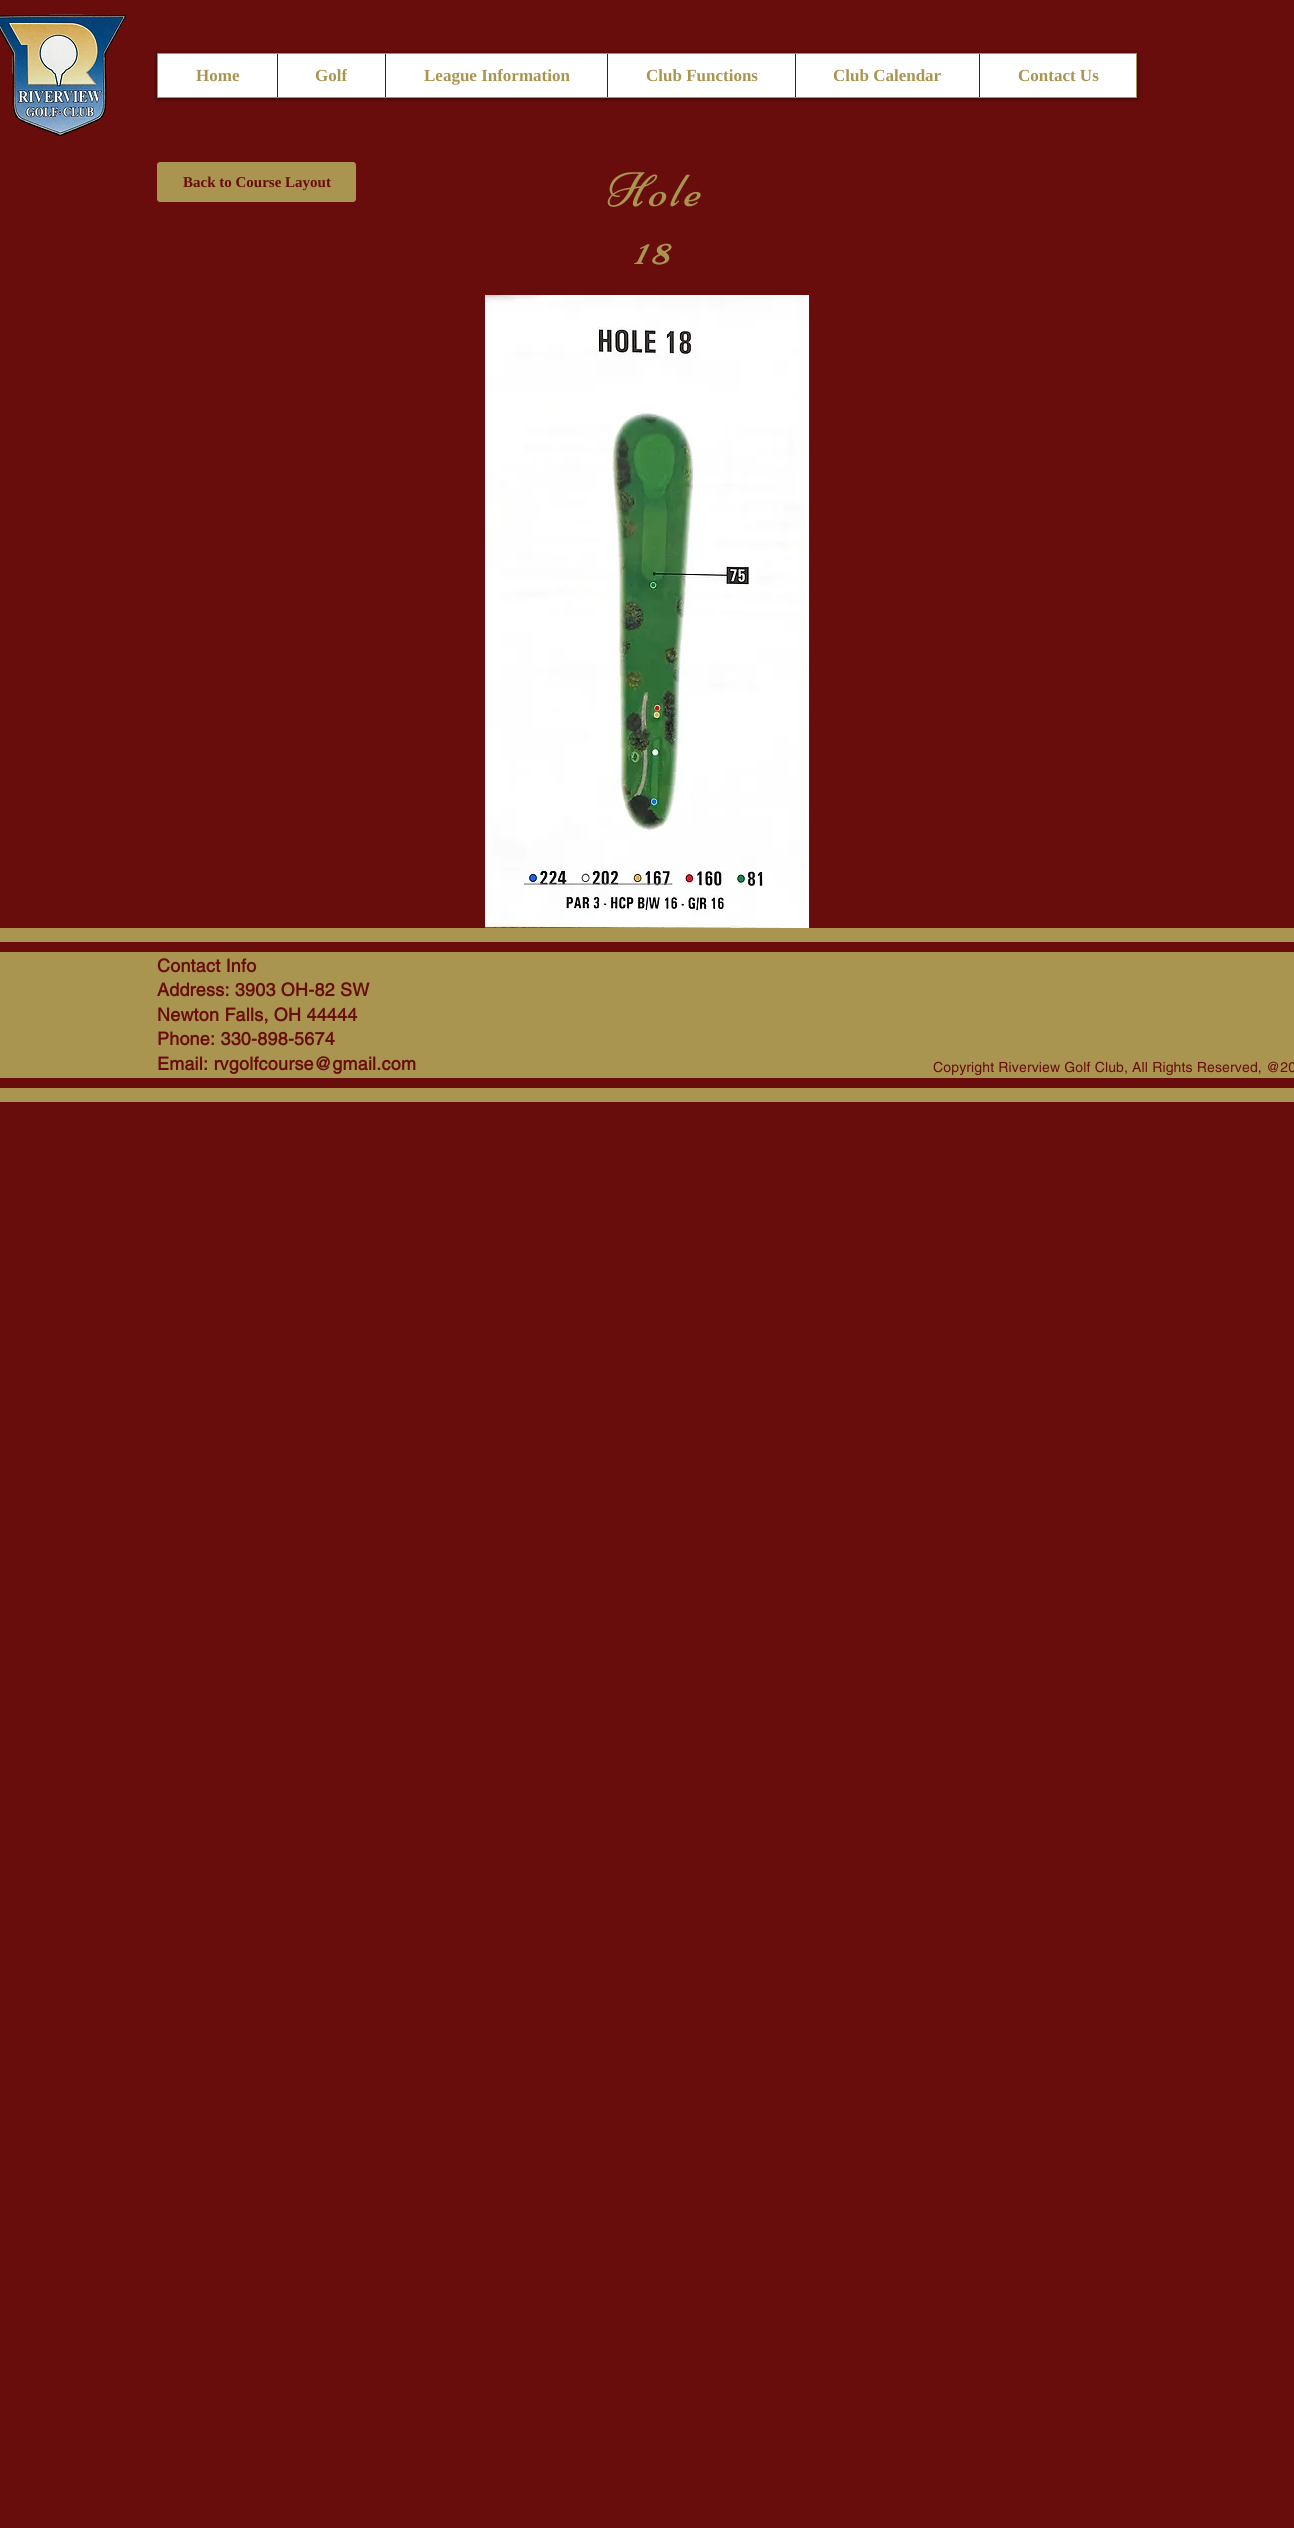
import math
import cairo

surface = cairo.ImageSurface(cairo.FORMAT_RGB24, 1294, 2528)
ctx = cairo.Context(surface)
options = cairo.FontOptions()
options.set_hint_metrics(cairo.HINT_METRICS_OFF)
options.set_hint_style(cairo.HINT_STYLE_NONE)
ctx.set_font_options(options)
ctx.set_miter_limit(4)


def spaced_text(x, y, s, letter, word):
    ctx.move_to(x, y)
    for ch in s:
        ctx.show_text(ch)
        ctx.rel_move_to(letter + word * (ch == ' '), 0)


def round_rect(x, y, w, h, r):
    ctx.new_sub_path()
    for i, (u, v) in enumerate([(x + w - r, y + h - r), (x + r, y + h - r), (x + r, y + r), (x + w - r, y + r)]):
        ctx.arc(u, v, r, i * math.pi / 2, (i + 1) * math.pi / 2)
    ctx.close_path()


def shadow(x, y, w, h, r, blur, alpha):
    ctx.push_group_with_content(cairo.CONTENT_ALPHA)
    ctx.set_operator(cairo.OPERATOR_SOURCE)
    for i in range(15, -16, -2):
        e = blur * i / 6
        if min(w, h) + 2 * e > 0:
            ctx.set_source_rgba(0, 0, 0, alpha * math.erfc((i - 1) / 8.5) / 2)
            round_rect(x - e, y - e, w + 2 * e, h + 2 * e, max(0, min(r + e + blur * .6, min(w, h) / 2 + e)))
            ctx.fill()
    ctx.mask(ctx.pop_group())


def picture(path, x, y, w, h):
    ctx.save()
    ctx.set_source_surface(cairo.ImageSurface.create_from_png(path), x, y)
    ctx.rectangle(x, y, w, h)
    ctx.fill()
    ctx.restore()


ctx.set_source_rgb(0.412, 0.047, 0.047)
ctx.paint()
picture("img1.png", 0, 14, 127, 123)
ctx.set_source_rgb(0, 0, 0)
shadow(157, 54, 980, 45, 0, 2, 0.6)
ctx.set_source_rgb(1, 1, 1)
ctx.rectangle(157.5, 53.5, 979, 44)
ctx.fill_preserve()
ctx.set_source_rgb(0.667, 0.584, 0.314)
ctx.set_line_width(1)
ctx.stroke()
ctx.select_font_face("Liberation Serif", cairo.FONT_SLANT_NORMAL, cairo.FONT_WEIGHT_BOLD)
ctx.set_font_size(17)
ctx.move_to(196, 81)
ctx.show_text("Home")
ctx.set_source_rgb(0.412, 0.047, 0.047)
ctx.rectangle(277, 54, 1, 43)
ctx.fill()
ctx.set_source_rgb(0.667, 0.584, 0.314)
ctx.move_to(315, 81)
ctx.show_text("Golf")
ctx.set_source_rgb(0.412, 0.047, 0.047)
ctx.rectangle(385, 54, 1, 43)
ctx.fill()
ctx.set_source_rgb(0.667, 0.584, 0.314)
ctx.move_to(424, 81)
ctx.show_text("League Information")
ctx.set_source_rgb(0.412, 0.047, 0.047)
ctx.rectangle(607, 54, 1, 43)
ctx.fill()
ctx.set_source_rgb(0.667, 0.584, 0.314)
ctx.move_to(646, 81)
ctx.show_text("Club Functions")
ctx.set_source_rgb(0.412, 0.047, 0.047)
ctx.rectangle(795, 54, 1, 43)
ctx.fill()
ctx.set_source_rgb(0.667, 0.584, 0.314)
ctx.move_to(833, 81)
ctx.show_text("Club Calendar")
ctx.set_source_rgb(0.412, 0.047, 0.047)
ctx.rectangle(979, 54, 1, 43)
ctx.fill()
ctx.set_source_rgb(0.667, 0.584, 0.314)
ctx.move_to(1018, 81)
ctx.show_text("Contact Us")
round_rect(157.5, 162.5, 198, 39, 2.5)
ctx.fill_preserve()
ctx.stroke()
ctx.set_font_size(15)
ctx.set_source_rgb(0.412, 0.047, 0.047)
ctx.move_to(183, 187)
ctx.show_text("Back to Course Layout")
picture("img2.png", 607, 172, 94, 35)
picture("img3.png", 634, 243, 38, 22)
picture("img4.png", 485, 295, 324, 633)
ctx.set_source_rgb(0.667, 0.584, 0.314)
ctx.rectangle(0, 928, 1294, 174)
ctx.fill()
ctx.set_source_rgb(0.412, 0.047, 0.047)
ctx.rectangle(0, 942, 1294, 10)
ctx.fill()
ctx.rectangle(0, 1078, 1294, 10)
ctx.fill()
ctx.select_font_face("helvetica", cairo.FONT_SLANT_NORMAL, cairo.FONT_WEIGHT_BOLD)
ctx.set_font_size(18)
spaced_text(157, 972, "Contact Info", 0.2, 0)
spaced_text(157, 996, "Address: 3903 OH-82 SW", 0.2, 0)
spaced_text(157, 1021, "Newton Falls, OH 44444", 0.2, 0)
spaced_text(157, 1045, "Phone: 330-898-5674", 0.2, 0)
spaced_text(157, 1070, "Email: rvgolfcourse@gmail.com", 0.2, 0)
ctx.select_font_face("helvetica")
ctx.set_font_size(14)
spaced_text(933, 1072, "Copyright Riverview Golf Club, All Rights Reserved, @20", 0.15, 0)
surface.write_to_png("page.png")
